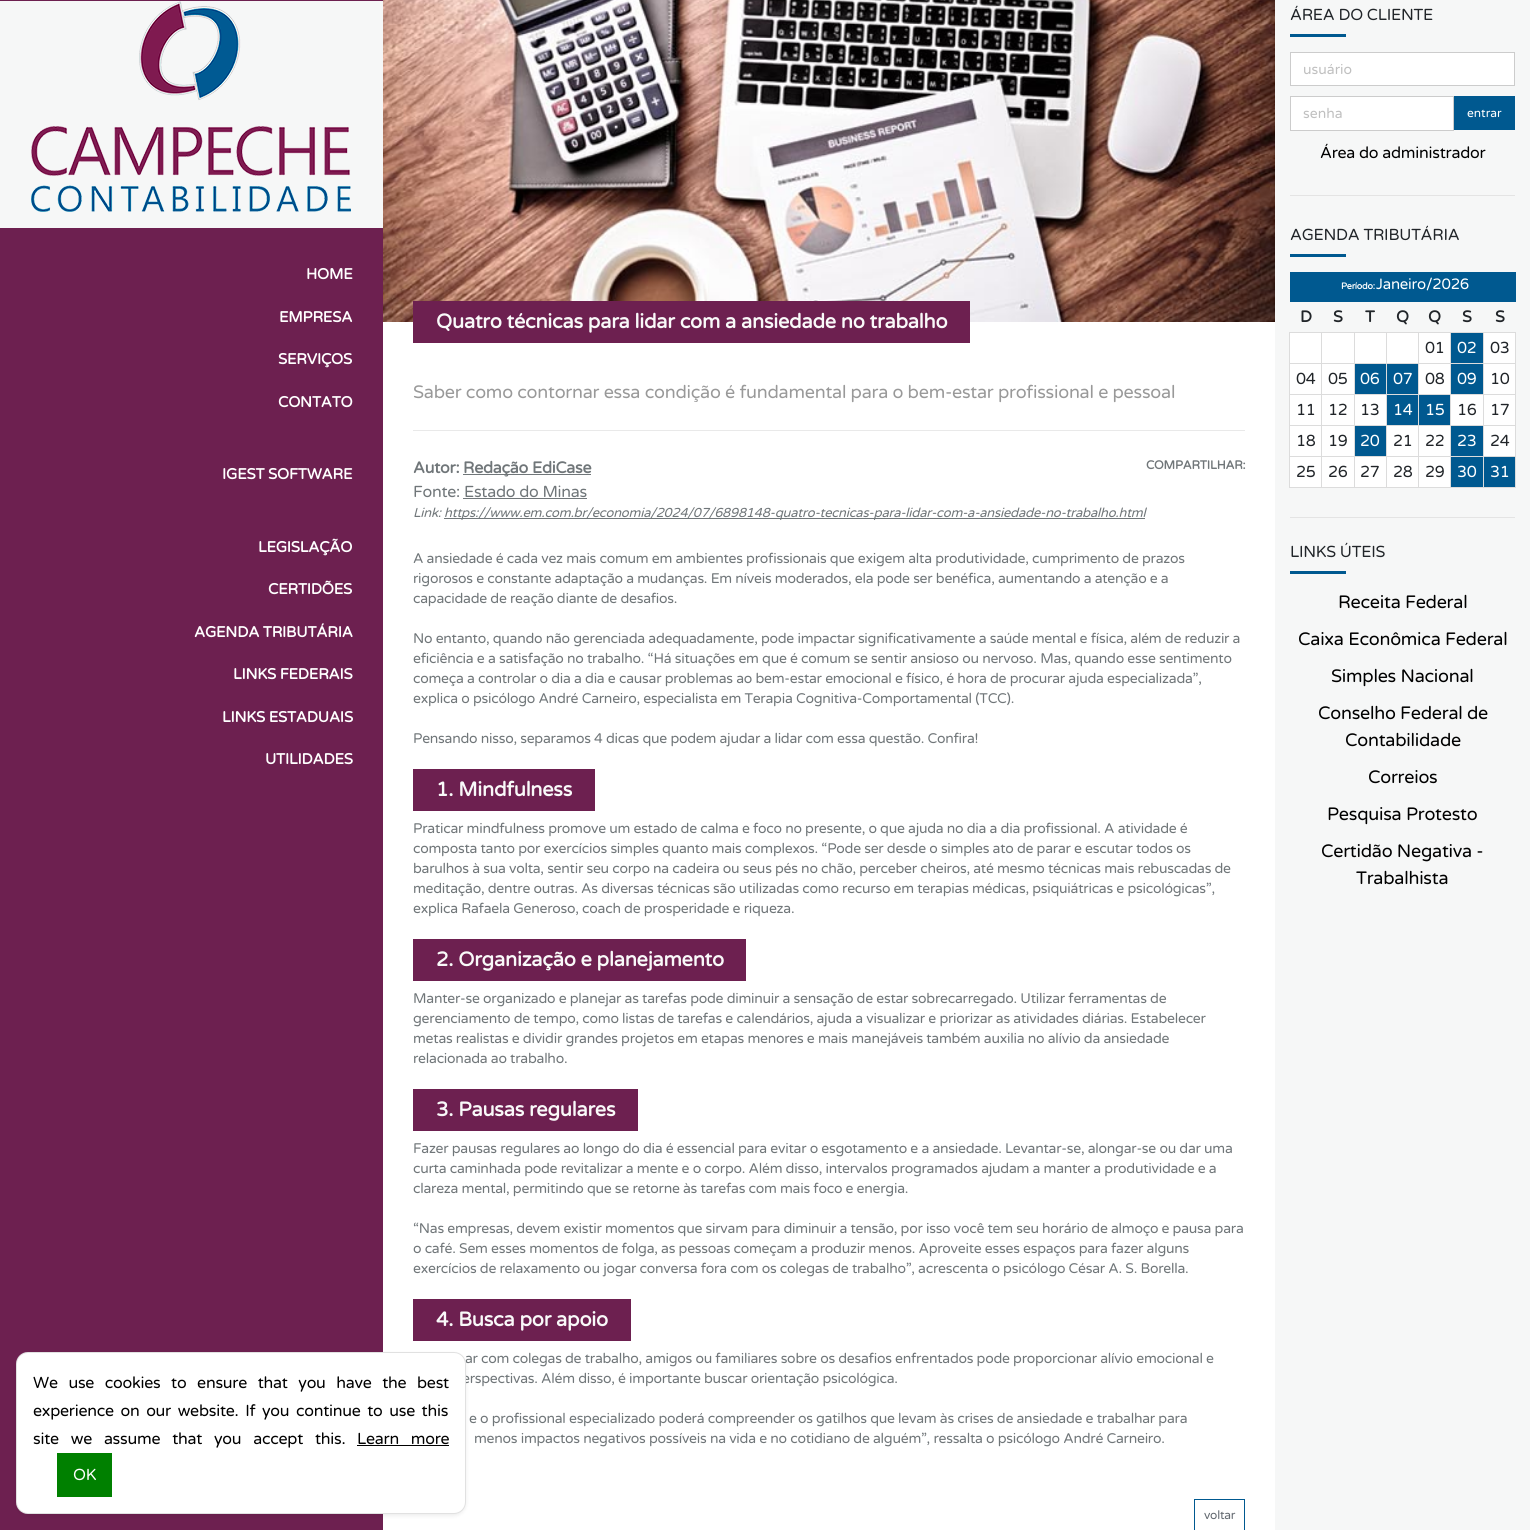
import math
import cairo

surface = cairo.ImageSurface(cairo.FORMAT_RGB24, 1530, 1530)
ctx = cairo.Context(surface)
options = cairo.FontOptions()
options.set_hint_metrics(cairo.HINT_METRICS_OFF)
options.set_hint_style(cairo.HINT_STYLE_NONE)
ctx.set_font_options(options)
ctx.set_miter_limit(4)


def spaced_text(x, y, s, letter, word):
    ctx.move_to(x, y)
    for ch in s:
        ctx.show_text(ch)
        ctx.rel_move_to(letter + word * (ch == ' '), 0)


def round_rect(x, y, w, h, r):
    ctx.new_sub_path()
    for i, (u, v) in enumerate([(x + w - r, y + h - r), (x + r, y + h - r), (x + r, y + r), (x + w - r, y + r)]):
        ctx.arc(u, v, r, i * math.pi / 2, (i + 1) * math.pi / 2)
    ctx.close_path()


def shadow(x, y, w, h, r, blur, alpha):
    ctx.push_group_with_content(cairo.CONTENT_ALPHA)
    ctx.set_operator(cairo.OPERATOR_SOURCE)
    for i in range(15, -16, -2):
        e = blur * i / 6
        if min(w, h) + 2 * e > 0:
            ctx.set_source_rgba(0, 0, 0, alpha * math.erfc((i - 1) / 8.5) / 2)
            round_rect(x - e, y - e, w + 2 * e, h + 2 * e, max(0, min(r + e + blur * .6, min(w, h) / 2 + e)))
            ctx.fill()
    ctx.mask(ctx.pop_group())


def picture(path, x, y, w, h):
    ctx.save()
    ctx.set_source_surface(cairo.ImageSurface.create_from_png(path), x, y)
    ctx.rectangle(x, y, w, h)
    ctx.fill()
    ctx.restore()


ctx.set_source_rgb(0.961, 0.965, 0.965)
ctx.paint()
ctx.set_source_rgb(0.427, 0.125, 0.314)
ctx.rectangle(0, 0, 383, 1530)
ctx.fill()
ctx.set_source_rgb(0.961, 0.965, 0.965)
ctx.rectangle(0, 1, 383, 227)
ctx.fill()
picture("img1.png", 31, 1, 320, 211)
ctx.select_font_face("Varela Round", cairo.FONT_SLANT_NORMAL, cairo.FONT_WEIGHT_BOLD)
ctx.set_font_size(15)
ctx.set_source_rgb(1, 1, 1)
spaced_text(306, 279, "HOME", -0.25, 0)
spaced_text(279, 322, "EMPRESA", -0.25, 0)
spaced_text(278, 364, "SERVIÇOS", -0.25, 0)
spaced_text(278, 407, "CONTATO", -0.25, 0)
spaced_text(222, 479, "IGEST SOFTWARE", -0.25, 0)
spaced_text(258, 552, "LEGISLAÇÃO", -0.25, 0)
spaced_text(268, 594, "CERTIDÕES", -0.25, 0)
spaced_text(194, 637, "AGENDA TRIBUTÁRIA", -0.25, 0)
spaced_text(233, 679, "LINKS FEDERAIS", -0.25, 0)
spaced_text(222, 722, "LINKS ESTADUAIS", -0.25, 0)
spaced_text(265, 764, "UTILIDADES", -0.25, 0)
ctx.rectangle(383, 322, 892, 1208)
ctx.fill()
picture("img2.png", 383, 0, 892, 322)
ctx.set_source_rgb(0.427, 0.125, 0.314)
ctx.rectangle(413, 301, 557, 42)
ctx.fill()
ctx.set_font_size(20)
ctx.set_source_rgb(0.973, 0.973, 0.973)
spaced_text(436, 328, "Quatro técnicas para lidar com a ansiedade no trabalho", -0.25, 0)
ctx.select_font_face("Varela Round")
ctx.set_font_size(18)
ctx.set_source_rgb(0.6, 0.6, 0.6)
spaced_text(413, 398, "Saber como contornar essa condição é fundamental para o bem-estar profissional e pessoal", -0.25, 0)
ctx.set_source_rgb(0.914, 0.914, 0.914)
ctx.rectangle(413, 430, 832, 1)
ctx.fill()
ctx.select_font_face("Varela Round", cairo.FONT_SLANT_NORMAL, cairo.FONT_WEIGHT_BOLD)
ctx.set_font_size(16)
ctx.set_source_rgb(0.439, 0.463, 0.475)
spaced_text(413, 473, "Autor:", -0.25, 0)
ctx.rectangle(463, 474, 128, 1)
ctx.fill()
spaced_text(463, 473, "Redação EdiCase", -0.25, 0)
ctx.set_font_size(12)
spaced_text(1146, 469, "COMPARTILHAR:", -0.25, 0)
ctx.select_font_face("Varela Round")
ctx.set_font_size(16)
spaced_text(413, 497, "Fonte: Estado do Minas", -0.25, 0)
ctx.rectangle(463, 498, 124, 1)
ctx.fill()
ctx.select_font_face("Varela Round", cairo.FONT_SLANT_ITALIC)
ctx.set_font_size(13)
spaced_text(413, 517, "Link:", -0.25, 0)
ctx.rectangle(444, 518, 701, 1)
ctx.fill()
spaced_text(444, 517, "https://www.em.com.br/economia/2024/07/6898148-quatro-tecnicas-para-lidar-com-a-ansiedade-no-trabalho.html", -0.25, 0)
ctx.select_font_face("Varela Round")
ctx.set_font_size(14)
spaced_text(413, 563, "A ansiedade é cada vez mais comum em ambientes profissionais que exigem alta produtividade, cumprimento de prazos", -0.25, 0)
spaced_text(413, 583, "rigorosos e constante adaptação a mudanças. Em níveis moderados, ela pode ser benéfica, aumentando a atenção e a", -0.25, 0)
spaced_text(413, 603, "capacidade de reação diante de desafios.", -0.25, 0)
spaced_text(413, 643, "No entanto, quando não gerenciada adequadamente, pode impactar significativamente a saúde mental e física, além de reduzir a", -0.25, 0)
spaced_text(413, 663, "eficiência e a satisfação no trabalho. “Há situações em que é comum se sentir ansioso ou nervoso. Mas, quando esse sentimento", -0.25, 0)
spaced_text(413, 683, "começa a controlar o dia a dia e causar problemas ao bem-estar emocional e físico, é hora de procurar ajuda especializada”,", -0.25, 0)
spaced_text(413, 703, "explica o psicólogo André Carneiro, especialista em Terapia Cognitiva-Comportamental (TCC).", -0.25, 0)
spaced_text(413, 743, "Pensando nisso, separamos 4 dicas que podem ajudar a lidar com essa questão. Confira!", -0.25, 0)
ctx.set_source_rgb(0.427, 0.125, 0.314)
ctx.rectangle(413, 769, 182, 42)
ctx.fill()
ctx.select_font_face("Varela Round", cairo.FONT_SLANT_NORMAL, cairo.FONT_WEIGHT_BOLD)
ctx.set_font_size(20)
ctx.set_source_rgb(0.973, 0.973, 0.973)
spaced_text(436, 796, "1. Mindfulness", -0.25, 0)
ctx.select_font_face("Varela Round")
ctx.set_font_size(14)
ctx.set_source_rgb(0.439, 0.463, 0.475)
spaced_text(413, 833, "Praticar mindfulness promove um estado de calma e foco no presente, o que ajuda no dia a dia profissional. A atividade é", -0.25, 0)
spaced_text(413, 853, "composta tanto por exercícios simples quanto mais complexos. “Pode ser desde o simples ato de parar e escutar todos os", -0.25, 0)
spaced_text(413, 873, "barulhos à sua volta, sentir seu corpo na cadeira ou seus pés no chão, perceber cheiros, até mesmo técnicas mais rebuscadas de", -0.25, 0)
spaced_text(413, 893, "meditação, dentre outras. As diversas técnicas são utilizadas como recurso em terapias médicas, psiquiátricas e psicológicas”,", -0.25, 0)
spaced_text(413, 913, "explica Rafaela Generoso, coach de prosperidade e riqueza.", -0.25, 0)
ctx.set_source_rgb(0.427, 0.125, 0.314)
ctx.rectangle(413, 939, 333, 42)
ctx.fill()
ctx.select_font_face("Varela Round", cairo.FONT_SLANT_NORMAL, cairo.FONT_WEIGHT_BOLD)
ctx.set_font_size(20)
ctx.set_source_rgb(0.973, 0.973, 0.973)
spaced_text(436, 966, "2. Organização e planejamento", -0.25, 0)
ctx.select_font_face("Varela Round")
ctx.set_font_size(14)
ctx.set_source_rgb(0.439, 0.463, 0.475)
spaced_text(413, 1003, "Manter-se organizado e planejar as tarefas pode diminuir a sensação de estar sobrecarregado. Utilizar ferramentas de", -0.25, 0)
spaced_text(413, 1023, "gerenciamento de tempo, como listas de tarefas e calendários, ajuda a visualizar e priorizar as atividades diárias. Estabelecer", -0.25, 0)
spaced_text(413, 1043, "metas realistas e dividir grandes projetos em etapas menores e mais manejáveis também auxilia no alívio da ansiedade", -0.25, 0)
spaced_text(413, 1063, "relacionada ao trabalho.", -0.25, 0)
ctx.set_source_rgb(0.427, 0.125, 0.314)
ctx.rectangle(413, 1089, 225, 42)
ctx.fill()
ctx.select_font_face("Varela Round", cairo.FONT_SLANT_NORMAL, cairo.FONT_WEIGHT_BOLD)
ctx.set_font_size(20)
ctx.set_source_rgb(0.973, 0.973, 0.973)
spaced_text(436, 1116, "3. Pausas regulares", -0.25, 0)
ctx.select_font_face("Varela Round")
ctx.set_font_size(14)
ctx.set_source_rgb(0.439, 0.463, 0.475)
spaced_text(413, 1153, "Fazer pausas regulares ao longo do dia é essencial para evitar o esgotamento e a ansiedade. Levantar-se, alongar-se ou dar uma", -0.25, 0)
spaced_text(413, 1173, "curta caminhada pode revitalizar a mente e o corpo. Além disso, intervalos programados ajudam a manter a produtividade e a", -0.25, 0)
spaced_text(413, 1193, "clareza mental, permitindo que se retorne às tarefas com mais foco e energia.", -0.25, 0)
spaced_text(413, 1233, "“Nas empresas, devem existir momentos que sirvam para diminuir a tensão, por isso você tem seu horário de almoço e pausa para", -0.25, 0)
spaced_text(413, 1253, "o café. Sem esses momentos de folga, as pessoas começam a produzir menos. Aproveite esses espaços para fazer alguns", -0.25, 0)
spaced_text(413, 1273, "exercícios de relaxamento ou jogar conversa fora com os colegas de trabalho”, acrescenta o psicólogo César A. S. Borella.", -0.25, 0)
ctx.set_source_rgb(0.427, 0.125, 0.314)
ctx.rectangle(413, 1299, 218, 42)
ctx.fill()
ctx.select_font_face("Varela Round", cairo.FONT_SLANT_NORMAL, cairo.FONT_WEIGHT_BOLD)
ctx.set_font_size(20)
ctx.set_source_rgb(0.973, 0.973, 0.973)
spaced_text(436, 1326, "4. Busca por apoio", -0.25, 0)
ctx.select_font_face("Varela Round")
ctx.set_font_size(14)
ctx.set_source_rgb(0.439, 0.463, 0.475)
spaced_text(465, 1363, "ar com colegas de trabalho, amigos ou familiares sobre os desafios enfrentados pode proporcionar alívio emocional e", -0.25, 0)
spaced_text(462, 1383, "erspectivas. Além disso, é importante buscar orientação psicológica.", -0.25, 0)
spaced_text(469, 1423, "e o profissional especializado poderá compreender os gatilhos que levam às crises de ansiedade e trabalhar para", -0.25, 0)
spaced_text(474, 1443, "menos impactos negativos possíveis na vida e no cotidiano de alguém”, ressalta o psicólogo André Carneiro.", -0.25, 0)
ctx.rectangle(1194.5, 1499.5, 50, 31)
ctx.set_source_rgb(0, 0.349, 0.565)
ctx.set_line_width(1)
ctx.stroke()
ctx.set_font_size(12)
ctx.set_source_rgb(0.388, 0.412, 0.439)
spaced_text(1204, 1519, "voltar", -0.25, 0)
ctx.set_source_rgb(0.894, 0.894, 0.894)
ctx.rectangle(1290, 195, 225, 1)
ctx.fill()
ctx.set_font_size(16)
ctx.set_source_rgb(0.129, 0.145, 0.161)
spaced_text(1290, 20, "ÁREA DO CLIENTE", -0.25, 0)
ctx.set_source_rgb(0, 0.349, 0.565)
ctx.rectangle(1290, 34, 56, 3)
ctx.fill()
ctx.set_source_rgb(1, 1, 1)
ctx.rectangle(1290.5, 52.5, 224, 33)
ctx.fill_preserve()
ctx.set_source_rgb(0.8, 0.8, 0.8)
ctx.stroke()
ctx.set_font_size(14)
ctx.set_source_rgb(0.753, 0.753, 0.753)
ctx.move_to(1303, 74)
ctx.show_text("usuário")
ctx.set_source_rgb(1, 1, 1)
ctx.rectangle(1290.5, 96.5, 163, 34)
ctx.fill_preserve()
ctx.set_source_rgb(0.8, 0.8, 0.8)
ctx.stroke()
ctx.set_source_rgb(0.753, 0.753, 0.753)
ctx.move_to(1303, 118)
ctx.show_text("senha")
ctx.set_source_rgb(0, 0.349, 0.565)
ctx.rectangle(1454, 96, 61, 34)
ctx.fill()
ctx.set_font_size(12)
ctx.set_source_rgb(1, 1, 1)
ctx.move_to(1467, 117)
ctx.show_text("entrar")
ctx.set_font_size(16)
ctx.set_source_rgb(0, 0, 0)
spaced_text(1320, 158, "Área do administrador", -0.25, 0)
ctx.set_source_rgb(0.894, 0.894, 0.894)
ctx.rectangle(1290, 517, 225, 1)
ctx.fill()
ctx.set_source_rgb(0.129, 0.145, 0.161)
spaced_text(1290, 240, "AGENDA TRIBUTÁRIA", -0.25, 0)
ctx.set_source_rgb(0, 0.349, 0.565)
ctx.rectangle(1290, 254, 56, 3)
ctx.fill()
ctx.rectangle(1290, 272, 226, 30)
ctx.fill()
ctx.select_font_face("Varela Round", cairo.FONT_SLANT_NORMAL, cairo.FONT_WEIGHT_BOLD)
ctx.set_font_size(9)
ctx.set_source_rgb(1, 1, 1)
spaced_text(1341, 289, "Período:", -0.25, 0)
ctx.select_font_face("Varela Round")
ctx.set_font_size(15)
spaced_text(1376, 289, "Janeiro/2026", -0.25, 0)
ctx.select_font_face("Varela Round", cairo.FONT_SLANT_NORMAL, cairo.FONT_WEIGHT_BOLD)
ctx.set_font_size(16)
ctx.set_source_rgb(0.129, 0.145, 0.161)
spaced_text(1300, 322, "D", -0.25, 0)
spaced_text(1333, 322, "S", -0.25, 0)
spaced_text(1365, 322, "T", -0.25, 0)
spaced_text(1396, 322, "Q", -0.25, 0)
spaced_text(1428, 322, "Q", -0.25, 0)
spaced_text(1462, 322, "S", -0.25, 0)
spaced_text(1495, 322, "S", -0.25, 0)
ctx.set_source_rgb(1, 1, 1)
ctx.rectangle(1290, 333, 31, 30)
ctx.fill()
ctx.set_source_rgb(0.863, 0.863, 0.863)
ctx.rectangle(1483, 332, 33, 1)
ctx.fill()
ctx.rectangle(1483, 363, 33, 1)
ctx.fill()
ctx.rectangle(1483, 394, 33, 1)
ctx.fill()
ctx.rectangle(1483, 425, 33, 1)
ctx.fill()
ctx.rectangle(1483, 456, 33, 1)
ctx.fill()
ctx.rectangle(1515, 456, 1, 32)
ctx.fill()
ctx.rectangle(1483, 487, 33, 1)
ctx.fill()
ctx.rectangle(1483, 456, 1, 32)
ctx.fill()
ctx.rectangle(1450, 456, 34, 1)
ctx.fill()
ctx.rectangle(1483, 425, 1, 32)
ctx.fill()
ctx.rectangle(1450, 425, 34, 1)
ctx.fill()
ctx.rectangle(1483, 394, 1, 32)
ctx.fill()
ctx.rectangle(1450, 394, 34, 1)
ctx.fill()
ctx.rectangle(1483, 363, 1, 32)
ctx.fill()
ctx.rectangle(1450, 363, 34, 1)
ctx.fill()
ctx.rectangle(1483, 332, 1, 32)
ctx.fill()
ctx.rectangle(1450, 332, 34, 1)
ctx.fill()
ctx.rectangle(1450, 487, 34, 1)
ctx.fill()
ctx.rectangle(1450, 456, 1, 32)
ctx.fill()
ctx.rectangle(1418, 456, 33, 1)
ctx.fill()
ctx.rectangle(1450, 425, 1, 32)
ctx.fill()
ctx.rectangle(1418, 425, 33, 1)
ctx.fill()
ctx.rectangle(1450, 394, 1, 32)
ctx.fill()
ctx.rectangle(1418, 394, 33, 1)
ctx.fill()
ctx.rectangle(1450, 363, 1, 32)
ctx.fill()
ctx.rectangle(1418, 363, 33, 1)
ctx.fill()
ctx.rectangle(1450, 332, 1, 32)
ctx.fill()
ctx.rectangle(1418, 332, 33, 1)
ctx.fill()
ctx.rectangle(1418, 487, 33, 1)
ctx.fill()
ctx.rectangle(1418, 456, 1, 32)
ctx.fill()
ctx.rectangle(1386, 456, 33, 1)
ctx.fill()
ctx.rectangle(1418, 425, 1, 32)
ctx.fill()
ctx.rectangle(1386, 425, 33, 1)
ctx.fill()
ctx.rectangle(1418, 394, 1, 32)
ctx.fill()
ctx.rectangle(1386, 394, 33, 1)
ctx.fill()
ctx.rectangle(1418, 363, 1, 32)
ctx.fill()
ctx.rectangle(1386, 363, 33, 1)
ctx.fill()
ctx.rectangle(1418, 332, 1, 32)
ctx.fill()
ctx.rectangle(1386, 332, 33, 1)
ctx.fill()
ctx.rectangle(1386, 487, 33, 1)
ctx.fill()
ctx.rectangle(1386, 456, 1, 32)
ctx.fill()
ctx.rectangle(1354, 456, 33, 1)
ctx.fill()
ctx.rectangle(1386, 425, 1, 32)
ctx.fill()
ctx.rectangle(1354, 425, 33, 1)
ctx.fill()
ctx.rectangle(1386, 394, 1, 32)
ctx.fill()
ctx.rectangle(1354, 394, 33, 1)
ctx.fill()
ctx.rectangle(1386, 363, 1, 32)
ctx.fill()
ctx.rectangle(1354, 363, 33, 1)
ctx.fill()
ctx.rectangle(1386, 332, 1, 32)
ctx.fill()
ctx.rectangle(1354, 332, 33, 1)
ctx.fill()
ctx.rectangle(1354, 487, 33, 1)
ctx.fill()
ctx.rectangle(1354, 456, 1, 32)
ctx.fill()
ctx.rectangle(1321, 456, 34, 1)
ctx.fill()
ctx.rectangle(1354, 425, 1, 32)
ctx.fill()
ctx.rectangle(1321, 425, 34, 1)
ctx.fill()
ctx.rectangle(1354, 394, 1, 32)
ctx.fill()
ctx.rectangle(1321, 394, 34, 1)
ctx.fill()
ctx.rectangle(1354, 363, 1, 32)
ctx.fill()
ctx.rectangle(1321, 363, 34, 1)
ctx.fill()
ctx.rectangle(1354, 332, 1, 32)
ctx.fill()
ctx.rectangle(1321, 332, 34, 1)
ctx.fill()
ctx.rectangle(1321, 487, 34, 1)
ctx.fill()
ctx.rectangle(1321, 456, 1, 32)
ctx.fill()
ctx.rectangle(1289, 456, 33, 1)
ctx.fill()
ctx.rectangle(1321, 425, 1, 32)
ctx.fill()
ctx.rectangle(1289, 425, 33, 1)
ctx.fill()
ctx.rectangle(1321, 394, 1, 32)
ctx.fill()
ctx.rectangle(1289, 394, 33, 1)
ctx.fill()
ctx.rectangle(1321, 363, 1, 32)
ctx.fill()
ctx.rectangle(1289, 363, 33, 1)
ctx.fill()
ctx.rectangle(1321, 332, 1, 32)
ctx.fill()
ctx.rectangle(1289, 332, 33, 1)
ctx.fill()
ctx.rectangle(1289, 487, 33, 1)
ctx.fill()
ctx.rectangle(1289, 456, 1, 32)
ctx.fill()
ctx.rectangle(1289, 425, 1, 32)
ctx.fill()
ctx.rectangle(1289, 394, 1, 32)
ctx.fill()
ctx.rectangle(1289, 363, 1, 32)
ctx.fill()
ctx.rectangle(1289, 332, 1, 32)
ctx.fill()
ctx.set_source_rgb(1, 1, 1)
ctx.rectangle(1322, 333, 32, 30)
ctx.fill()
ctx.rectangle(1355, 333, 31, 30)
ctx.fill()
ctx.rectangle(1387, 333, 31, 30)
ctx.fill()
ctx.rectangle(1419, 333, 31, 30)
ctx.fill()
ctx.select_font_face("Varela Round")
ctx.set_source_rgb(0.129, 0.145, 0.161)
spaced_text(1425, 353, "01", -0.25, 0)
ctx.set_source_rgb(0, 0.349, 0.565)
ctx.rectangle(1451, 333, 32, 30)
ctx.fill()
ctx.set_source_rgb(1, 1, 1)
spaced_text(1457, 353, "02", -0.25, 0)
ctx.rectangle(1484, 333, 31, 30)
ctx.fill()
ctx.set_source_rgb(0.863, 0.863, 0.863)
ctx.rectangle(1515, 425, 1, 32)
ctx.fill()
ctx.rectangle(1515, 394, 1, 32)
ctx.fill()
ctx.rectangle(1515, 363, 1, 32)
ctx.fill()
ctx.rectangle(1515, 332, 1, 32)
ctx.fill()
ctx.set_source_rgb(0.129, 0.145, 0.161)
spaced_text(1490, 353, "03", -0.25, 0)
ctx.set_source_rgb(1, 1, 1)
ctx.rectangle(1290, 364, 31, 30)
ctx.fill()
ctx.set_source_rgb(0.129, 0.145, 0.161)
spaced_text(1296, 384, "04", -0.25, 0)
ctx.set_source_rgb(1, 1, 1)
ctx.rectangle(1322, 364, 32, 30)
ctx.fill()
ctx.set_source_rgb(0.129, 0.145, 0.161)
spaced_text(1328, 384, "05", -0.25, 0)
ctx.set_source_rgb(0, 0.349, 0.565)
ctx.rectangle(1355, 364, 31, 30)
ctx.fill()
ctx.set_source_rgb(1, 1, 1)
spaced_text(1360, 384, "06", -0.25, 0)
ctx.set_source_rgb(0, 0.349, 0.565)
ctx.rectangle(1387, 364, 31, 30)
ctx.fill()
ctx.set_source_rgb(1, 1, 1)
spaced_text(1393, 384, "07", -0.25, 0)
ctx.rectangle(1419, 364, 31, 30)
ctx.fill()
ctx.set_source_rgb(0.129, 0.145, 0.161)
spaced_text(1425, 384, "08", -0.25, 0)
ctx.set_source_rgb(0, 0.349, 0.565)
ctx.rectangle(1451, 364, 32, 30)
ctx.fill()
ctx.set_source_rgb(1, 1, 1)
spaced_text(1457, 384, "09", -0.25, 0)
ctx.rectangle(1484, 364, 31, 30)
ctx.fill()
ctx.set_source_rgb(0.129, 0.145, 0.161)
spaced_text(1490, 384, "10", -0.25, 0)
ctx.set_source_rgb(1, 1, 1)
ctx.rectangle(1290, 395, 31, 30)
ctx.fill()
ctx.set_source_rgb(0.129, 0.145, 0.161)
spaced_text(1296, 415, "11", -0.25, 0)
ctx.set_source_rgb(1, 1, 1)
ctx.rectangle(1322, 395, 32, 30)
ctx.fill()
ctx.set_source_rgb(0.129, 0.145, 0.161)
spaced_text(1328, 415, "12", -0.25, 0)
ctx.set_source_rgb(1, 1, 1)
ctx.rectangle(1355, 395, 31, 30)
ctx.fill()
ctx.set_source_rgb(0.129, 0.145, 0.161)
spaced_text(1360, 415, "13", -0.25, 0)
ctx.set_source_rgb(0, 0.349, 0.565)
ctx.rectangle(1387, 395, 31, 30)
ctx.fill()
ctx.set_source_rgb(1, 1, 1)
spaced_text(1393, 415, "14", -0.25, 0)
ctx.set_source_rgb(0, 0.349, 0.565)
ctx.rectangle(1419, 395, 31, 30)
ctx.fill()
ctx.set_source_rgb(1, 1, 1)
spaced_text(1425, 415, "15", -0.25, 0)
ctx.rectangle(1451, 395, 32, 30)
ctx.fill()
ctx.set_source_rgb(0.129, 0.145, 0.161)
spaced_text(1457, 415, "16", -0.25, 0)
ctx.set_source_rgb(1, 1, 1)
ctx.rectangle(1484, 395, 31, 30)
ctx.fill()
ctx.set_source_rgb(0.129, 0.145, 0.161)
spaced_text(1490, 415, "17", -0.25, 0)
ctx.set_source_rgb(1, 1, 1)
ctx.rectangle(1290, 426, 31, 30)
ctx.fill()
ctx.set_source_rgb(0.129, 0.145, 0.161)
spaced_text(1296, 446, "18", -0.25, 0)
ctx.set_source_rgb(1, 1, 1)
ctx.rectangle(1322, 426, 32, 30)
ctx.fill()
ctx.set_source_rgb(0.129, 0.145, 0.161)
spaced_text(1328, 446, "19", -0.25, 0)
ctx.set_source_rgb(0, 0.349, 0.565)
ctx.rectangle(1355, 426, 31, 30)
ctx.fill()
ctx.set_source_rgb(1, 1, 1)
spaced_text(1360, 446, "20", -0.25, 0)
ctx.rectangle(1387, 426, 31, 30)
ctx.fill()
ctx.set_source_rgb(0.129, 0.145, 0.161)
spaced_text(1393, 446, "21", -0.25, 0)
ctx.set_source_rgb(1, 1, 1)
ctx.rectangle(1419, 426, 31, 30)
ctx.fill()
ctx.set_source_rgb(0.129, 0.145, 0.161)
spaced_text(1425, 446, "22", -0.25, 0)
ctx.set_source_rgb(0, 0.349, 0.565)
ctx.rectangle(1451, 426, 32, 30)
ctx.fill()
ctx.set_source_rgb(1, 1, 1)
spaced_text(1457, 446, "23", -0.25, 0)
ctx.rectangle(1484, 426, 31, 30)
ctx.fill()
ctx.set_source_rgb(0.129, 0.145, 0.161)
spaced_text(1490, 446, "24", -0.25, 0)
ctx.set_source_rgb(1, 1, 1)
ctx.rectangle(1290, 457, 31, 30)
ctx.fill()
ctx.set_source_rgb(0.129, 0.145, 0.161)
spaced_text(1296, 477, "25", -0.25, 0)
ctx.set_source_rgb(1, 1, 1)
ctx.rectangle(1322, 457, 32, 30)
ctx.fill()
ctx.set_source_rgb(0.129, 0.145, 0.161)
spaced_text(1328, 477, "26", -0.25, 0)
ctx.set_source_rgb(1, 1, 1)
ctx.rectangle(1355, 457, 31, 30)
ctx.fill()
ctx.set_source_rgb(0.129, 0.145, 0.161)
spaced_text(1360, 477, "27", -0.25, 0)
ctx.set_source_rgb(1, 1, 1)
ctx.rectangle(1387, 457, 31, 30)
ctx.fill()
ctx.set_source_rgb(0.129, 0.145, 0.161)
spaced_text(1393, 477, "28", -0.25, 0)
ctx.set_source_rgb(1, 1, 1)
ctx.rectangle(1419, 457, 31, 30)
ctx.fill()
ctx.set_source_rgb(0.129, 0.145, 0.161)
spaced_text(1425, 477, "29", -0.25, 0)
ctx.set_source_rgb(0, 0.349, 0.565)
ctx.rectangle(1451, 457, 32, 30)
ctx.fill()
ctx.set_source_rgb(1, 1, 1)
spaced_text(1457, 477, "30", -0.25, 0)
ctx.set_source_rgb(0, 0.349, 0.565)
ctx.rectangle(1484, 457, 31, 30)
ctx.fill()
ctx.set_source_rgb(1, 1, 1)
spaced_text(1490, 477, "31", -0.25, 0)
ctx.set_source_rgb(0.129, 0.145, 0.161)
spaced_text(1290, 557, "LINKS ÚTEIS", -0.25, 0)
ctx.set_source_rgb(0, 0.349, 0.565)
ctx.rectangle(1290, 571, 56, 3)
ctx.fill()
ctx.set_font_size(18)
ctx.set_source_rgb(0, 0, 0)
spaced_text(1338, 608, "Receita Federal", -0.25, 0)
spaced_text(1298, 645, "Caixa Econômica Federal", -0.25, 0)
spaced_text(1331, 682, "Simples Nacional", -0.25, 0)
spaced_text(1318, 719, "Conselho Federal de", -0.25, 0)
spaced_text(1345, 746, "Contabilidade", -0.25, 0)
spaced_text(1368, 783, "Correios", -0.25, 0)
spaced_text(1327, 820, "Pesquisa Protesto", -0.25, 0)
spaced_text(1321, 857, "Certidão Negativa -", -0.25, 0)
spaced_text(1356, 884, "Trabalhista", -0.25, 0)
ctx.set_source_rgb(0, 0, 0)
shadow(16, 1354, 450, 162, 12, 2, 0.07)
ctx.set_source_rgb(1, 1, 1)
round_rect(16, 1352, 450, 162, 12)
ctx.fill()
round_rect(16.5, 1352.5, 449, 161, 11.5)
ctx.set_source_rgba(0, 0, 0, 0.12)
ctx.stroke()
ctx.set_font_size(16)
ctx.set_source_rgb(0, 0, 0)
spaced_text(33, 1388, "We use cookies to ensure that you have the best", -0.25, 6.75)
spaced_text(33, 1416, "experience on our website. If you continue to use this", -0.25, 2.75)
spaced_text(33, 1444, "site we assume that you accept this.", -0.25, 8)
spaced_text(357, 1444, "Learn more", -0.25, 8)
ctx.rectangle(357, 1445, 92, 1)
ctx.fill()
ctx.set_source_rgb(0, 0.502, 0)
ctx.rectangle(57, 1453, 55, 44)
ctx.fill()
ctx.set_source_rgb(1, 1, 1)
spaced_text(73, 1480, "OK", -0.25, 0)
surface.write_to_png("page.png")
